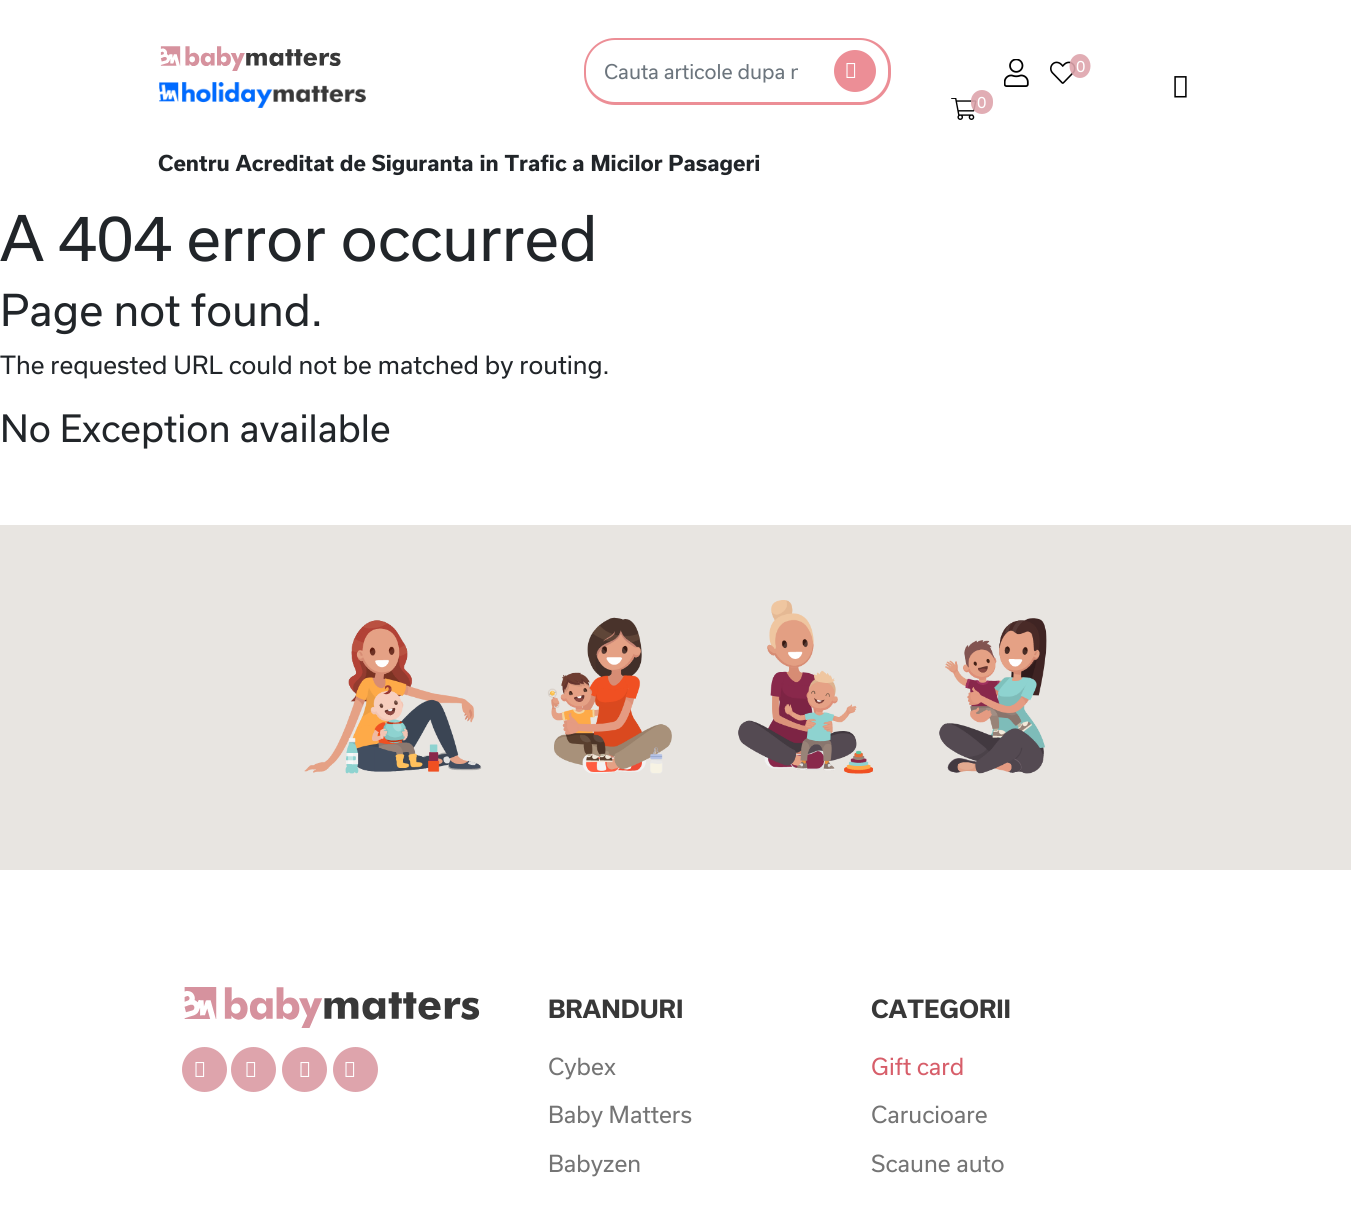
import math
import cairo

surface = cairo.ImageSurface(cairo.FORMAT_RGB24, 1351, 1214)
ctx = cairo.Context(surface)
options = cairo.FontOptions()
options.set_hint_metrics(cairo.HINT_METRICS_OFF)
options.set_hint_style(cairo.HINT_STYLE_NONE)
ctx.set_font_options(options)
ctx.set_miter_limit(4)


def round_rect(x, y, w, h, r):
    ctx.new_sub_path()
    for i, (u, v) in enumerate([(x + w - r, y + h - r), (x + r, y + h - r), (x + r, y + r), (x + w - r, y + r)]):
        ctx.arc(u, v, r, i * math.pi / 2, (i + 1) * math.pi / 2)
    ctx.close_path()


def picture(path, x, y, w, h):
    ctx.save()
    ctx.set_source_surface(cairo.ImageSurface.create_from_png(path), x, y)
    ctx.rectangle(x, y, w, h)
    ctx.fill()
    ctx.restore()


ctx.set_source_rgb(1, 1, 1)
ctx.paint()
picture("img1.png", 160, 46, 181, 25)
picture("img2.png", 159, 82, 207, 26)
ctx.set_source_rgb(0.925, 0.557, 0.588)
ctx.set_fill_rule(cairo.FILL_RULE_EVEN_ODD)
ctx.new_path()
ctx.move_to(615, 38)
ctx.line_to(816, 38)
ctx.line_to(816, 105)
ctx.line_to(615, 105)
ctx.curve_to(598, 105, 584, 91, 584, 74)
ctx.line_to(584, 69)
ctx.curve_to(584, 52, 598, 38, 615, 38)
ctx.close_path()
ctx.move_to(615, 40)
ctx.line_to(816, 40)
ctx.line_to(816, 102)
ctx.line_to(615, 102)
ctx.curve_to(599, 102, 586, 89, 586, 74)
ctx.line_to(586, 69)
ctx.curve_to(586, 53, 599, 40, 615, 40)
ctx.close_path()
ctx.fill()
ctx.save()
ctx.set_fill_rule(cairo.FILL_RULE_WINDING)
ctx.rectangle(605, 60, 193, 24)
ctx.clip()
ctx.select_font_face("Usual")
ctx.set_font_size(19.5)
ctx.set_source_rgb(0.424, 0.459, 0.49)
ctx.move_to(604, 79)
ctx.show_text("Cauta articole dupa n")
ctx.restore()
ctx.new_path()
ctx.move_to(816, 38)
ctx.line_to(860, 38)
ctx.curve_to(877, 38, 891, 52, 891, 69)
ctx.line_to(891, 74)
ctx.curve_to(891, 91, 877, 105, 860, 105)
ctx.line_to(816, 105)
ctx.close_path()
ctx.move_to(816, 40)
ctx.line_to(860, 40)
ctx.curve_to(875, 40, 888, 53, 888, 69)
ctx.line_to(888, 74)
ctx.curve_to(888, 89, 875, 102, 860, 102)
ctx.line_to(816, 102)
ctx.close_path()
ctx.fill()
ctx.arc(855, 71, 21, 0, 2 * math.pi)
ctx.fill()
picture("img3.png", 846, 63, 10, 15)
picture("img4.png", 1004, 59, 25, 28)
picture("img5.png", 1050, 61, 26, 23)
ctx.set_source_rgba(0.871, 0.643, 0.675, 0.9)
ctx.new_path()
ctx.move_to(1080, 54)
ctx.curve_to(1086, 54, 1090.5, 59.5, 1090.5, 66)
ctx.curve_to(1090.5, 72.5, 1086, 78, 1080, 78)
ctx.curve_to(1074, 78, 1069.5, 72.5, 1069.5, 66)
ctx.curve_to(1069.5, 59.5, 1074, 54, 1080, 54)
ctx.close_path()
ctx.fill()
ctx.select_font_face("Usual")
ctx.set_font_size(15)
ctx.set_source_rgb(1, 1, 1)
ctx.move_to(1076, 72)
ctx.show_text("0")
picture("img6.png", 951, 98, 26, 22)
ctx.set_source_rgba(0.871, 0.643, 0.675, 0.9)
round_rect(971, 90, 22, 24, 11)
ctx.fill()
ctx.set_source_rgb(1, 1, 1)
ctx.move_to(977, 108)
ctx.show_text("0")
picture("img7.png", 1174, 76, 13, 22)
ctx.select_font_face("Usual", cairo.FONT_SLANT_NORMAL, cairo.FONT_WEIGHT_BOLD)
ctx.set_font_size(21)
ctx.set_source_rgb(0.129, 0.145, 0.161)
ctx.move_to(158, 171)
ctx.show_text("Centru Acreditat de Siguranta in Trafic a Micilor Pasageri")
ctx.select_font_face("Usual")
ctx.set_font_size(60)
ctx.move_to(0, 261)
ctx.show_text("A 404 error occurred")
ctx.set_font_size(42)
ctx.move_to(0, 326)
ctx.show_text("Page not found.")
ctx.set_font_size(24)
ctx.move_to(0, 374)
ctx.show_text("The requested URL could not be matched by routing.")
ctx.set_font_size(36)
ctx.move_to(0, 442)
ctx.show_text("No Exception available")
ctx.set_source_rgb(0.91, 0.898, 0.882)
ctx.rectangle(0, 525, 1351, 345)
ctx.fill()
picture("img8.png", 304, 600, 743, 174)
picture("img9.png", 184, 987, 296, 41)
ctx.set_source_rgb(0.871, 0.643, 0.675)
ctx.arc(204.5, 1069.5, 22.5, 0, 2 * math.pi)
ctx.fill()
picture("img10.png", 195, 1062, 10, 15)
ctx.arc(253.5, 1069.5, 22.5, 0, 2 * math.pi)
ctx.fill()
picture("img10.png", 246, 1062, 10, 15)
ctx.arc(304.5, 1069.5, 22.5, 0, 2 * math.pi)
ctx.fill()
picture("img10.png", 300, 1062, 10, 15)
ctx.arc(355.5, 1069.5, 22.5, 0, 2 * math.pi)
ctx.fill()
picture("img10.png", 345, 1062, 10, 15)
ctx.select_font_face("Usual", cairo.FONT_SLANT_NORMAL, cairo.FONT_WEIGHT_BOLD)
ctx.set_font_size(24)
ctx.set_source_rgb(0.22, 0.22, 0.22)
ctx.move_to(548, 1018)
ctx.show_text("BRANDURI")
ctx.select_font_face("Usual")
ctx.set_font_size(22.5)
ctx.set_source_rgb(0.455, 0.455, 0.455)
ctx.move_to(548, 1075)
ctx.show_text("Cybex")
ctx.move_to(548, 1123)
ctx.show_text("Baby Matters")
ctx.move_to(548, 1172)
ctx.show_text("Babyzen")
ctx.select_font_face("Usual", cairo.FONT_SLANT_NORMAL, cairo.FONT_WEIGHT_BOLD)
ctx.set_font_size(24)
ctx.set_source_rgb(0.22, 0.22, 0.22)
ctx.move_to(871, 1018)
ctx.show_text("CATEGORII")
ctx.select_font_face("Usual")
ctx.set_font_size(22.5)
ctx.set_source_rgb(0.843, 0.369, 0.416)
ctx.move_to(871, 1075)
ctx.show_text("Gift card")
ctx.set_source_rgb(0.455, 0.455, 0.455)
ctx.move_to(871, 1123)
ctx.show_text("Carucioare")
ctx.move_to(871, 1172)
ctx.show_text("Scaune auto")
surface.write_to_png("page.png")
